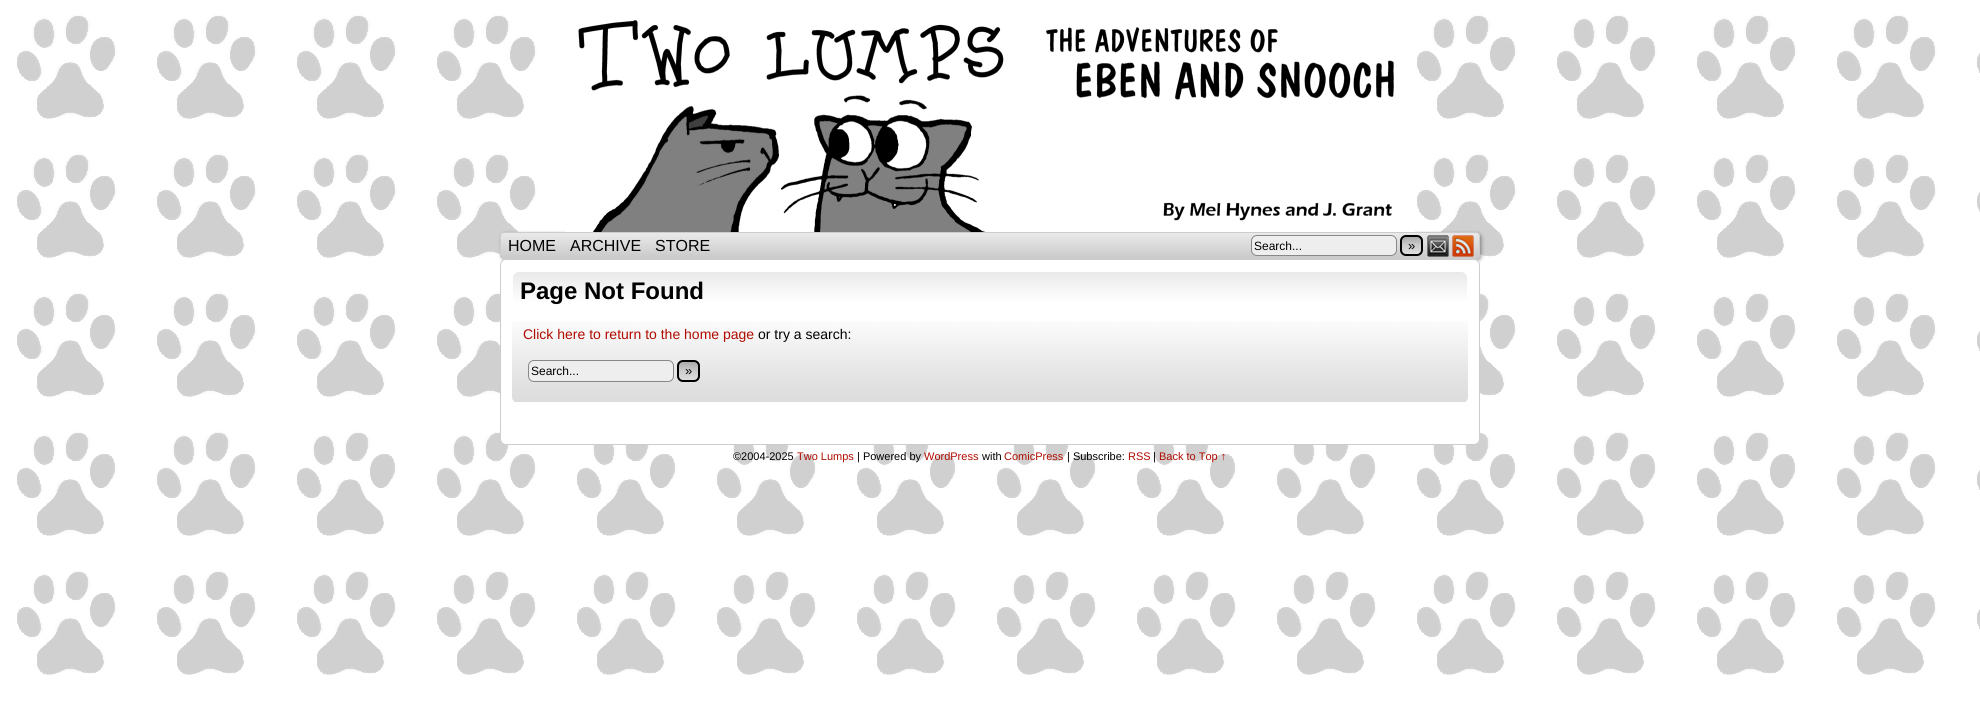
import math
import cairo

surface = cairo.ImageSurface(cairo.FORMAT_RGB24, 1980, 702)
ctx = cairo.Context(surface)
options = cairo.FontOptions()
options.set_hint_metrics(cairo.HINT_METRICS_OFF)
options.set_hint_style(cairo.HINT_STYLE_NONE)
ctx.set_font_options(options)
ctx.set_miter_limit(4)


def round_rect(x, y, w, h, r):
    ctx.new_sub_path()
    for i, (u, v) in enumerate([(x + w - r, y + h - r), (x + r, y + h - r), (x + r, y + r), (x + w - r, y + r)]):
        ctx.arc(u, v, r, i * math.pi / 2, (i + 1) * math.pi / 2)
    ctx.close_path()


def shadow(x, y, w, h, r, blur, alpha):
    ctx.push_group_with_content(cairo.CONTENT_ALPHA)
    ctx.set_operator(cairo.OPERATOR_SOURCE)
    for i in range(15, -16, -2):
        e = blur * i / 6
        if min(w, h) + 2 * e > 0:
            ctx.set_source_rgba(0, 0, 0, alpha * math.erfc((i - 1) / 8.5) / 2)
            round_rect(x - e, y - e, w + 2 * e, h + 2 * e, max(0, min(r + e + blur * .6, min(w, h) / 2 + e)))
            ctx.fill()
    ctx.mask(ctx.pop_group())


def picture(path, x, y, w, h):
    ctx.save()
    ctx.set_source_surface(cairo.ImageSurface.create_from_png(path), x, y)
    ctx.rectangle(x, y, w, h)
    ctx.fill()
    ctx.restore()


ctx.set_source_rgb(1, 1, 1)
ctx.paint()
picture("img1.png", 0, 0, 1980, 702)
ctx.set_source_rgb(0, 0, 0)
shadow(502, 234, 980, 27, 4, 2, 0.2)
ctx.set_source_rgb(0.078, 0.078, 0.078)
shadow(501, 233, 980, 27, 4, 1.5, 0.2)
picture("img2.png", 565, 15, 850, 217)
ctx.save()
round_rect(500, 232, 980, 27, 4)
ctx.clip()
gradient = cairo.LinearGradient(990, 233, 990, 258)
gradient.add_color_stop_rgba(0, 0.918, 0.918, 0.918, 1)
gradient.add_color_stop_rgba(1, 0.792, 0.792, 0.792, 1)
ctx.set_source(gradient)
ctx.rectangle(500, 233, 980, 25)
ctx.fill()
ctx.restore()
round_rect(500.5, 232.5, 979, 26, 3.5)
ctx.set_source_rgb(0.8, 0.8, 0.8)
ctx.set_line_width(1)
ctx.stroke()
ctx.select_font_face("Liberation Sans")
ctx.set_font_size(16)
ctx.set_source_rgb(0, 0, 0)
ctx.move_to(508, 251)
ctx.show_text("HOME")
ctx.move_to(570, 251)
ctx.show_text("ARCHIVE")
ctx.move_to(655, 251)
ctx.show_text("STORE")
ctx.set_source_rgb(0.933, 0.933, 0.933)
round_rect(1251.5, 235.5, 145, 20, 5.5)
ctx.fill_preserve()
ctx.set_source_rgb(0.533, 0.533, 0.533)
ctx.stroke()
ctx.set_font_size(12)
ctx.set_source_rgb(0, 0, 0)
ctx.move_to(1254, 250)
ctx.show_text("Search...")
ctx.save()
round_rect(1400, 235, 23, 21, 6)
ctx.clip()
gradient = cairo.LinearGradient(1412, 237, 1412, 254)
gradient.add_color_stop_rgba(0, 0.667, 0.667, 0.667, 1)
gradient.add_color_stop_rgba(0.5, 0.8, 0.8, 0.8, 1)
gradient.add_color_stop_rgba(1, 0.867, 0.867, 0.867, 1)
ctx.set_source(gradient)
ctx.rectangle(1400, 237, 23, 17)
ctx.fill()
ctx.restore()
round_rect(1401, 236, 21, 19, 5)
ctx.set_line_width(2)
ctx.stroke()
ctx.set_font_size(13)
ctx.move_to(1408, 250)
ctx.show_text("»")
picture("img3.png", 1427, 235, 22, 22)
picture("img4.png", 1452, 235, 22, 22)
ctx.set_source_rgb(1, 1, 1)
round_rect(500.5, 259.5, 979, 185, 5.5)
ctx.fill_preserve()
ctx.set_source_rgb(0.8, 0.8, 0.8)
ctx.set_line_width(1)
ctx.stroke()
picture("img5.png", 512, 321, 956, 81)
gradient = cairo.LinearGradient(990, 272, 990, 310)
gradient.add_color_stop_rgba(0, 0.914, 0.914, 0.914, 1)
gradient.add_color_stop_rgba(0.8, 1, 1, 1, 1)
gradient.add_color_stop_rgba(1, 1, 1, 1, 1)
ctx.set_source(gradient)
round_rect(513, 272, 954, 38, 6)
ctx.fill()
ctx.select_font_face("Liberation Sans", cairo.FONT_SLANT_NORMAL, cairo.FONT_WEIGHT_BOLD)
ctx.set_font_size(24)
ctx.set_source_rgb(0, 0, 0)
ctx.move_to(520, 299)
ctx.show_text("Page Not Found")
ctx.select_font_face("Liberation Sans")
ctx.set_font_size(14)
ctx.set_source_rgb(0.69, 0.043, 0)
ctx.move_to(523, 339)
ctx.show_text("Click here to return to the home page")
ctx.set_source_rgb(0, 0, 0)
ctx.move_to(758, 339)
ctx.show_text("or try a search:")
ctx.set_source_rgb(0.933, 0.933, 0.933)
round_rect(528.5, 360.5, 145, 21, 5.5)
ctx.fill_preserve()
ctx.set_source_rgb(0.533, 0.533, 0.533)
ctx.stroke()
ctx.set_font_size(12)
ctx.set_source_rgb(0, 0, 0)
ctx.move_to(531, 375)
ctx.show_text("Search...")
ctx.save()
round_rect(677, 360, 23, 22, 6)
ctx.clip()
gradient = cairo.LinearGradient(689, 362, 689, 380)
gradient.add_color_stop_rgba(0, 0.667, 0.667, 0.667, 1)
gradient.add_color_stop_rgba(0.5, 0.8, 0.8, 0.8, 1)
gradient.add_color_stop_rgba(1, 0.867, 0.867, 0.867, 1)
ctx.set_source(gradient)
ctx.rectangle(677, 362, 23, 18)
ctx.fill()
ctx.restore()
round_rect(678, 361, 21, 20, 5)
ctx.set_line_width(2)
ctx.stroke()
ctx.set_font_size(13)
ctx.move_to(685, 375)
ctx.show_text("»")
ctx.set_font_size(11)
ctx.move_to(733, 460)
ctx.show_text("©2004-2025")
ctx.set_source_rgb(0.69, 0.043, 0)
ctx.move_to(797, 460)
ctx.show_text("Two Lumps")
ctx.set_source_rgb(0, 0, 0)
ctx.move_to(857, 460)
ctx.show_text("| Powered by")
ctx.set_source_rgb(0.69, 0.043, 0)
ctx.move_to(924, 460)
ctx.show_text("WordPress")
ctx.set_source_rgb(0, 0, 0)
ctx.move_to(982, 460)
ctx.show_text("with")
ctx.set_source_rgb(0.69, 0.043, 0)
ctx.move_to(1004, 460)
ctx.show_text("ComicPress")
ctx.set_source_rgb(0, 0, 0)
ctx.move_to(1067, 460)
ctx.show_text("| Subscribe:")
ctx.set_source_rgb(0.69, 0.043, 0)
ctx.move_to(1128, 460)
ctx.show_text("RSS")
ctx.set_source_rgb(0, 0, 0)
ctx.move_to(1153, 460)
ctx.show_text("|")
ctx.set_source_rgb(0.69, 0.043, 0)
ctx.move_to(1159, 460)
ctx.show_text("Back to Top ↑")
surface.write_to_png("page.png")
